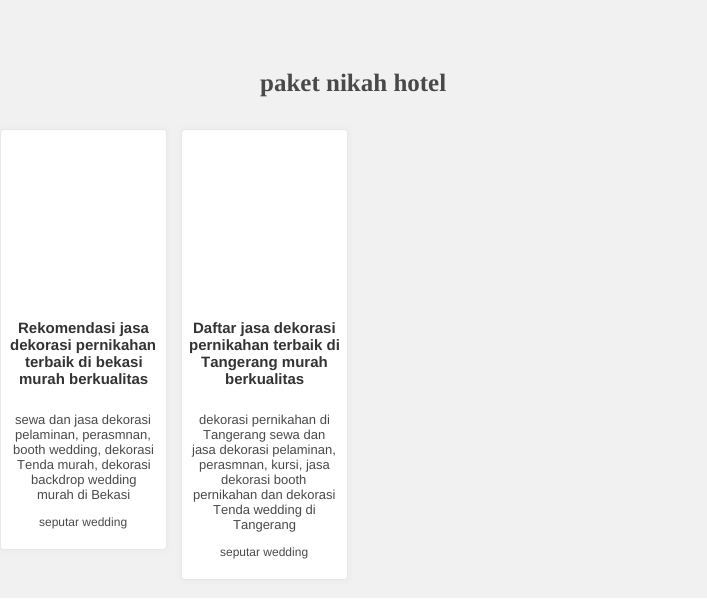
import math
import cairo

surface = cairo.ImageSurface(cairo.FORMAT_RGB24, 707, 616)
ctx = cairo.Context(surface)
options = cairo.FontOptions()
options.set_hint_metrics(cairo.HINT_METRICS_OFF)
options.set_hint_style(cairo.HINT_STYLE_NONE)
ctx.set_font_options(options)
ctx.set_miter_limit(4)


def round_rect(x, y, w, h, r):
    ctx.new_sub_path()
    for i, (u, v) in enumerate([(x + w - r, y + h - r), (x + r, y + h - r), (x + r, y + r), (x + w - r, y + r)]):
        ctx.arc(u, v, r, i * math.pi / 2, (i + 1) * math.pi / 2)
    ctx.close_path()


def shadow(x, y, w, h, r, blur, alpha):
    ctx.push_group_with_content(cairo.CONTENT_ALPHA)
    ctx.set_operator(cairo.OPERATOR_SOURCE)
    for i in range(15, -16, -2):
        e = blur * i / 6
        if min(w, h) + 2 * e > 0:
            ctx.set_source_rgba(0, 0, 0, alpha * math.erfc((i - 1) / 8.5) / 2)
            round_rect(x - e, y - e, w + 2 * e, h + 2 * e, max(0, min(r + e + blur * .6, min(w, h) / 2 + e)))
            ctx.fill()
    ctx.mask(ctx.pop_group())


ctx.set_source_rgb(0.945, 0.945, 0.945)
ctx.paint()
ctx.select_font_face("Liberation Serif", cairo.FONT_SLANT_NORMAL, cairo.FONT_WEIGHT_BOLD)
ctx.set_font_size(25)
ctx.set_source_rgb(0.286, 0.286, 0.286)
ctx.move_to(260, 91)
ctx.show_text("paket nikah hotel")
ctx.set_source_rgb(0.878, 0.878, 0.878)
shadow(3, 132, 161, 415, 1, 5, 1)
ctx.set_source_rgb(1, 1, 1)
round_rect(0.5, 129.5, 166, 420, 3.5)
ctx.fill_preserve()
ctx.set_source_rgb(0.91, 0.91, 0.91)
ctx.set_line_width(1)
ctx.stroke()
ctx.select_font_face("Liberation Sans", cairo.FONT_SLANT_NORMAL, cairo.FONT_WEIGHT_BOLD)
ctx.set_font_size(15)
ctx.set_source_rgb(0.2, 0.2, 0.2)
ctx.move_to(18, 333)
ctx.show_text("Rekomendasi jasa")
ctx.move_to(10, 350)
ctx.show_text("dekorasi pernikahan")
ctx.move_to(25, 367)
ctx.show_text("terbaik di bekasi")
ctx.move_to(19, 384)
ctx.show_text("murah berkualitas")
ctx.select_font_face("Liberation Sans")
ctx.set_font_size(13)
ctx.set_source_rgb(0.286, 0.286, 0.286)
ctx.move_to(15, 424)
ctx.show_text("sewa dan jasa dekorasi")
ctx.move_to(15, 439)
ctx.show_text("pelaminan, perasmnan,")
ctx.move_to(13, 454)
ctx.show_text("booth wedding, dekorasi")
ctx.move_to(17, 469)
ctx.show_text("Tenda murah, dekorasi")
ctx.move_to(31, 484)
ctx.show_text("backdrop wedding")
ctx.move_to(37, 499)
ctx.show_text("murah di Bekasi")
ctx.set_font_size(12)
ctx.move_to(39, 526)
ctx.show_text("seputar wedding")
ctx.set_source_rgb(0.878, 0.878, 0.878)
shadow(184, 132, 161, 445, 1, 5, 1)
ctx.set_source_rgb(1, 1, 1)
round_rect(181.5, 129.5, 166, 450, 3.5)
ctx.fill_preserve()
ctx.set_source_rgb(0.91, 0.91, 0.91)
ctx.stroke()
ctx.select_font_face("Liberation Sans", cairo.FONT_SLANT_NORMAL, cairo.FONT_WEIGHT_BOLD)
ctx.set_font_size(15)
ctx.set_source_rgb(0.2, 0.2, 0.2)
ctx.move_to(193, 333)
ctx.show_text("Daftar jasa dekorasi")
ctx.move_to(189, 350)
ctx.show_text("pernikahan terbaik di")
ctx.move_to(201, 367)
ctx.show_text("Tangerang murah")
ctx.move_to(225, 384)
ctx.show_text("berkualitas")
ctx.select_font_face("Liberation Sans")
ctx.set_font_size(13)
ctx.set_source_rgb(0.286, 0.286, 0.286)
ctx.move_to(199, 424)
ctx.show_text("dekorasi pernikahan di")
ctx.move_to(203, 439)
ctx.show_text("Tangerang sewa dan")
ctx.move_to(192, 454)
ctx.show_text("jasa dekorasi pelaminan,")
ctx.move_to(199, 469)
ctx.show_text("perasmnan, kursi, jasa")
ctx.move_to(221, 484)
ctx.show_text("dekorasi booth")
ctx.move_to(193, 499)
ctx.show_text("pernikahan dan dekorasi")
ctx.move_to(213, 514)
ctx.show_text("Tenda wedding di")
ctx.move_to(233, 529)
ctx.show_text("Tangerang")
ctx.set_font_size(12)
ctx.move_to(220, 556)
ctx.show_text("seputar wedding")
ctx.set_source_rgb(1, 1, 1)
ctx.rectangle(0, 598, 707, 18)
ctx.fill()
surface.write_to_png("page.png")
